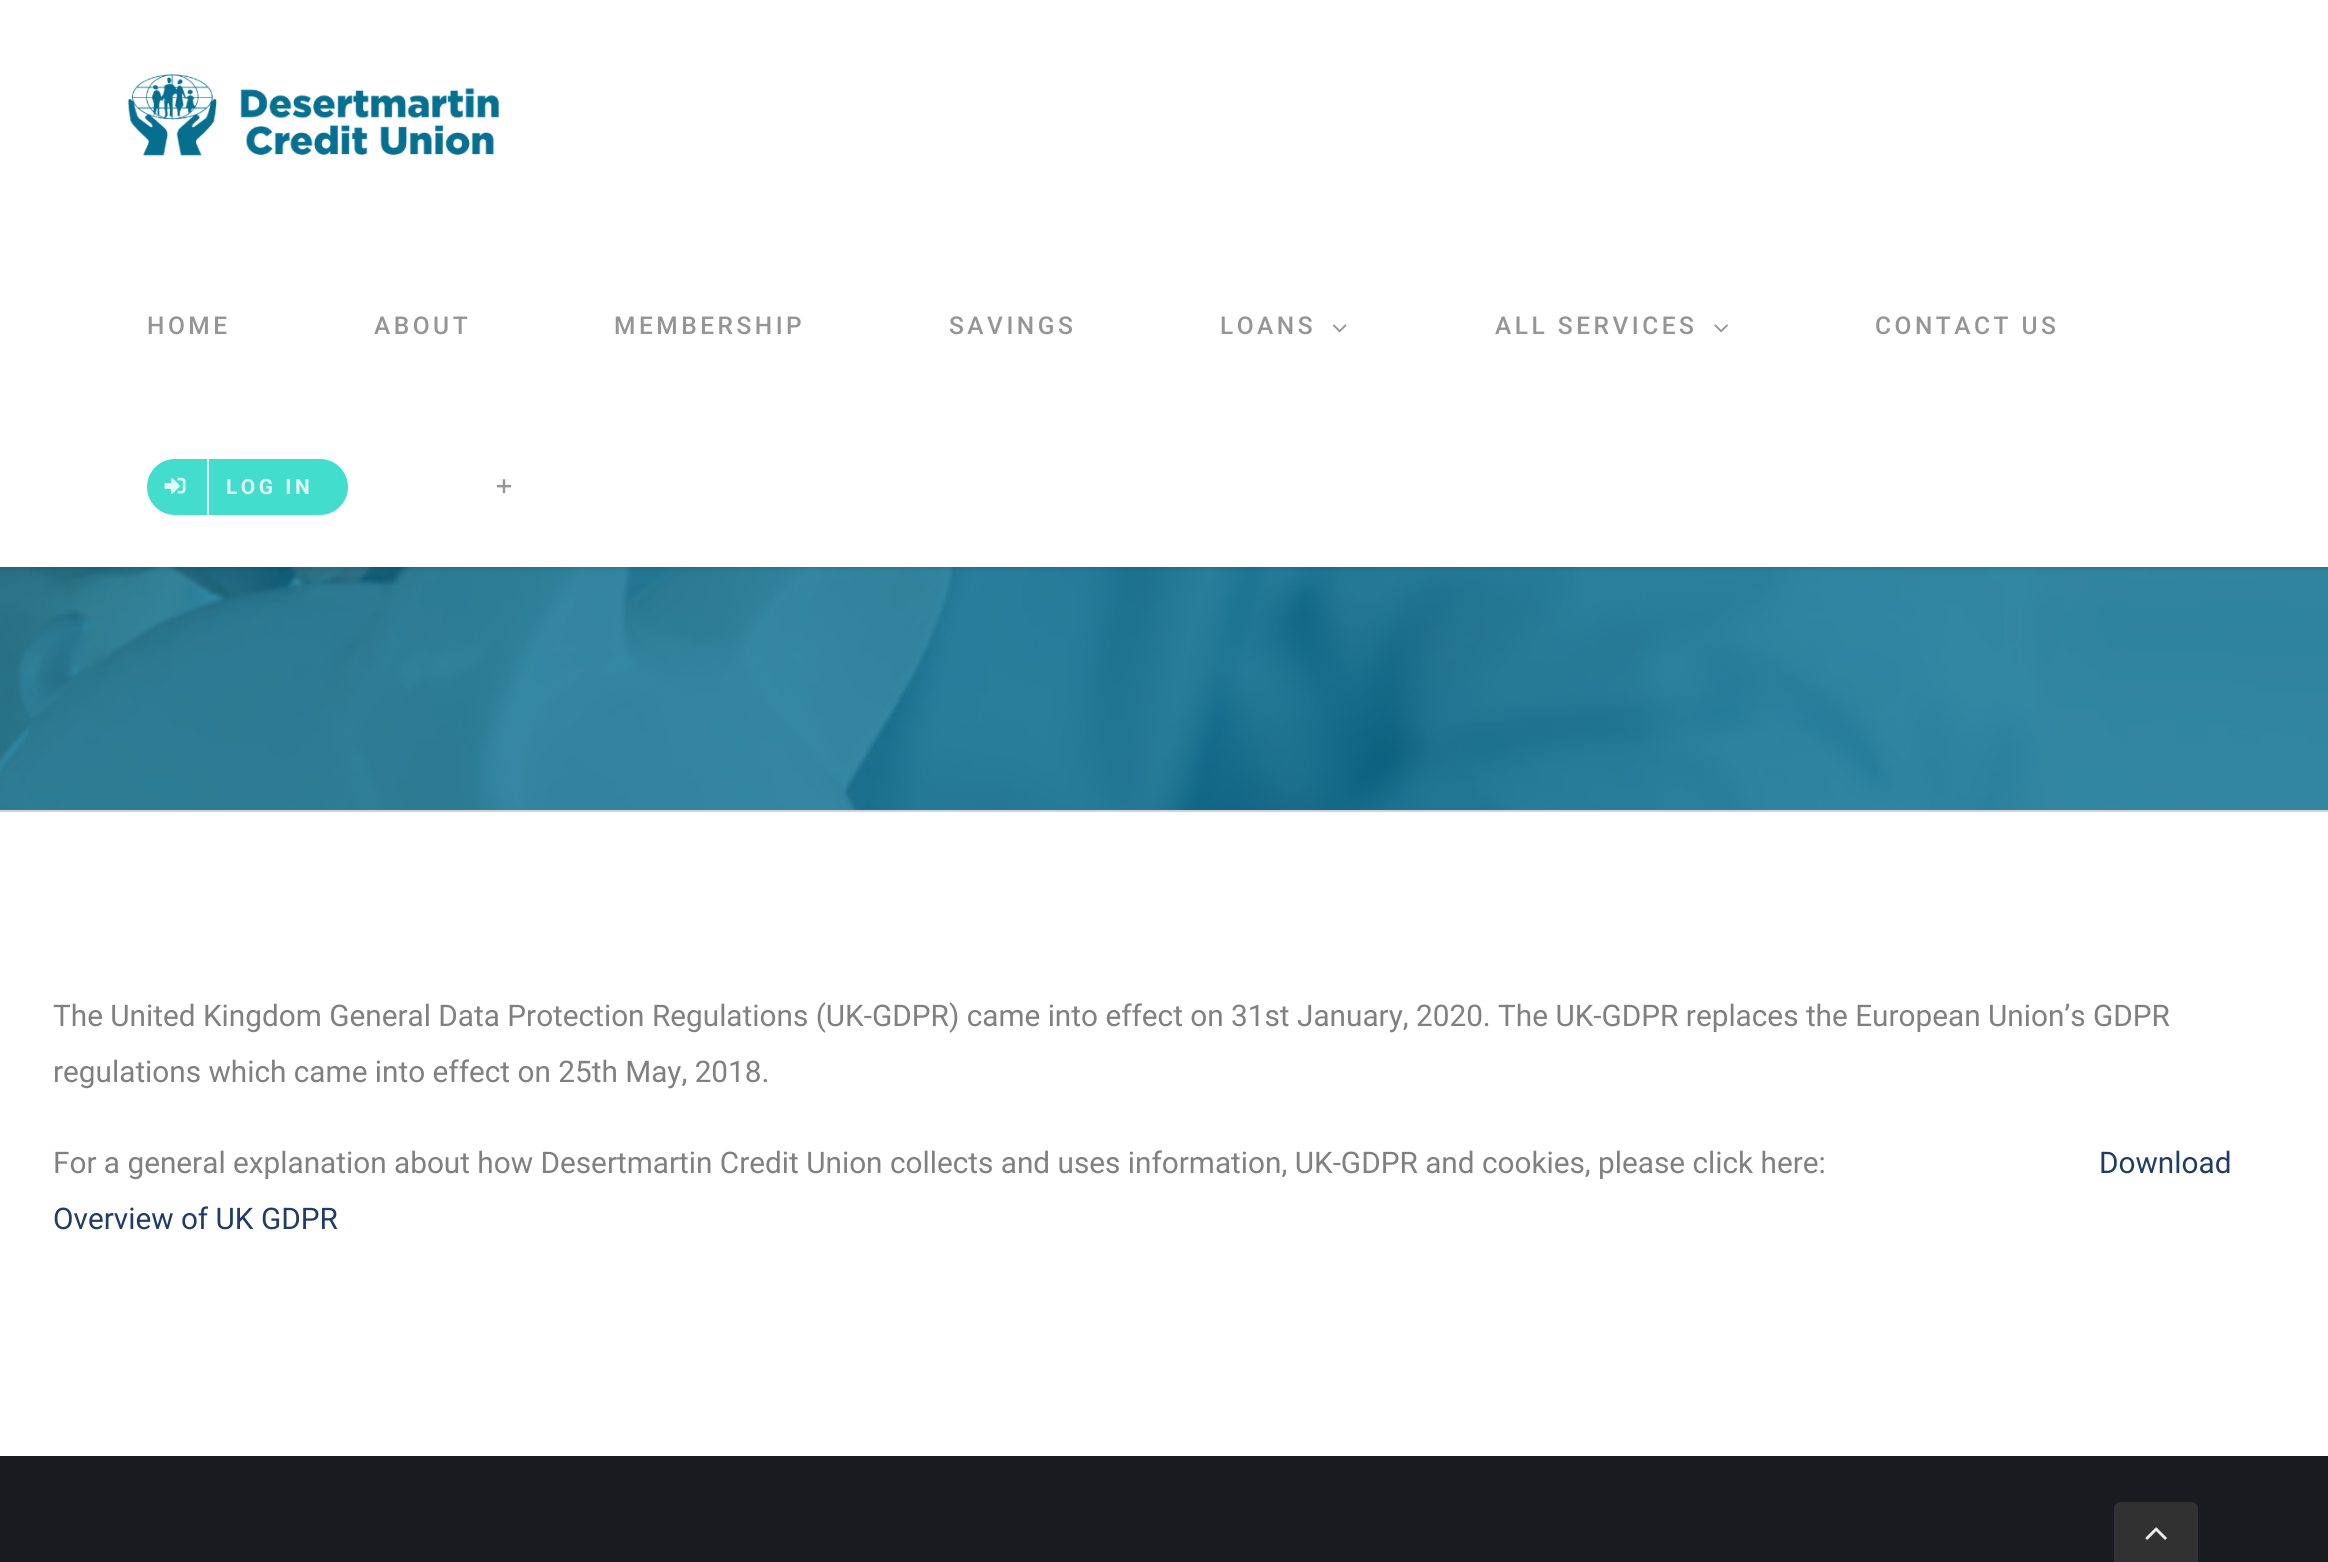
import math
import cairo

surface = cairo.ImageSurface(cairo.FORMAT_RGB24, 2328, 1562)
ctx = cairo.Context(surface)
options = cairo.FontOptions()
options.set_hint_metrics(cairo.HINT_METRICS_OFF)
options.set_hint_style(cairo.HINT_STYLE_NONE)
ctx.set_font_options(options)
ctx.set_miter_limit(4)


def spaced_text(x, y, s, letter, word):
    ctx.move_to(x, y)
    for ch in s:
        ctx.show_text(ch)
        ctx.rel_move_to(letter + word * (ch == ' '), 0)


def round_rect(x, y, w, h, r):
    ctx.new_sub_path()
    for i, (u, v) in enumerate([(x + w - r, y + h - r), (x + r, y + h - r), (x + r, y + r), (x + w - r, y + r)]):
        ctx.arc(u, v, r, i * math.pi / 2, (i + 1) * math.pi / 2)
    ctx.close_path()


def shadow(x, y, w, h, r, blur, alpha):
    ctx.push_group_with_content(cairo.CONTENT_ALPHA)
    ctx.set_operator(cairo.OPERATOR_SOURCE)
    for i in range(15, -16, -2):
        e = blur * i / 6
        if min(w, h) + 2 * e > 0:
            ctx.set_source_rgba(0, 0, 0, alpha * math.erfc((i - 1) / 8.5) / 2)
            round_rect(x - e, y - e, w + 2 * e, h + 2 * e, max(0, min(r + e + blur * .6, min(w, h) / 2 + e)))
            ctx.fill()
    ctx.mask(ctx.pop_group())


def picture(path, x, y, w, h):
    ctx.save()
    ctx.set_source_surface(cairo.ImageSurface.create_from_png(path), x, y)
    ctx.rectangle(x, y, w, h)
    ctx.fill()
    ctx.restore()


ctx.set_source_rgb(1, 1, 1)
ctx.paint()
picture("img6.png", 0, 567, 2328, 243)
ctx.set_source_rgb(0, 0, 0)
shadow(0, 2, 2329, 567, 0, 2.5, 0.12)
ctx.set_source_rgb(1, 1, 1)
ctx.rectangle(0, 0, 2328, 567)
ctx.fill()
picture("img1.png", 127, 74, 372, 82)
ctx.select_font_face("Roboto Medium")
ctx.set_font_size(24.5)
ctx.set_source_rgb(0.588, 0.584, 0.584)
spaced_text(147, 334, "HOME", 3.5, 0)
spaced_text(374, 334, "ABOUT", 3.5, 0)
spaced_text(614, 334, "MEMBERSHIP", 3.5, 0)
spaced_text(949, 334, "SAVINGS", 3.5, 0)
spaced_text(1220, 334, "LOANS", 3.5, 0)
picture("img2.png", 1332, 324, 15, 9)
spaced_text(1495, 334, "ALL SERVICES", 3.5, 0)
picture("img3.png", 1714, 324, 14, 9)
spaced_text(1875, 334, "CONTACT US", 3.5, 0)
ctx.set_source_rgb(0.263, 0.867, 0.804)
round_rect(147, 459, 201, 56, 28)
ctx.fill()
ctx.set_source_rgb(0.875, 0.976, 0.969)
ctx.rectangle(207, 459, 2, 56)
ctx.fill()
picture("img4.png", 164, 477, 22, 17)
ctx.select_font_face("Roboto", cairo.FONT_SLANT_NORMAL, cairo.FONT_WEIGHT_BOLD)
ctx.set_font_size(21)
spaced_text(226, 494, "LOG IN", 3.5, 0)
picture("img5.png", 496, 479, 16, 15)
ctx.set_source_rgb(0.824, 0.827, 0.831)
ctx.rectangle(0, 810, 2328, 2)
ctx.fill()
ctx.select_font_face("Roboto")
ctx.set_font_size(29.75)
ctx.set_source_rgb(0.502, 0.502, 0.502)
ctx.move_to(53, 1026)
ctx.show_text("The United Kingdom General Data Protection Regulations (UK-GDPR) came into effect on 31st January, 2020. The UK-GDPR replaces the European Union’s GDPR")
ctx.move_to(53, 1082)
ctx.show_text("regulations which came into effect on 25th May, 2018.")
ctx.move_to(53, 1173)
ctx.show_text("For a general explanation about how Desertmartin Credit Union collects and uses information, UK-GDPR and cookies, please click here:")
ctx.set_source_rgb(0.129, 0.239, 0.396)
ctx.move_to(2099, 1173)
ctx.show_text("Download")
ctx.move_to(53, 1229)
ctx.show_text("Overview of UK GDPR")
ctx.set_source_rgb(0.102, 0.106, 0.129)
ctx.rectangle(0, 1456, 2328, 106)
ctx.fill()
ctx.set_source_rgb(0.192, 0.192, 0.192)
ctx.new_path()
ctx.move_to(2121, 1502)
ctx.line_to(2191, 1502)
ctx.curve_to(2195, 1502, 2198, 1505, 2198, 1509)
ctx.line_to(2198, 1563)
ctx.line_to(2114, 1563)
ctx.line_to(2114, 1509)
ctx.curve_to(2114, 1505, 2117, 1502, 2121, 1502)
ctx.close_path()
ctx.fill()
picture("img7.png", 2145, 1527, 22, 13)
surface.write_to_png("page.png")
